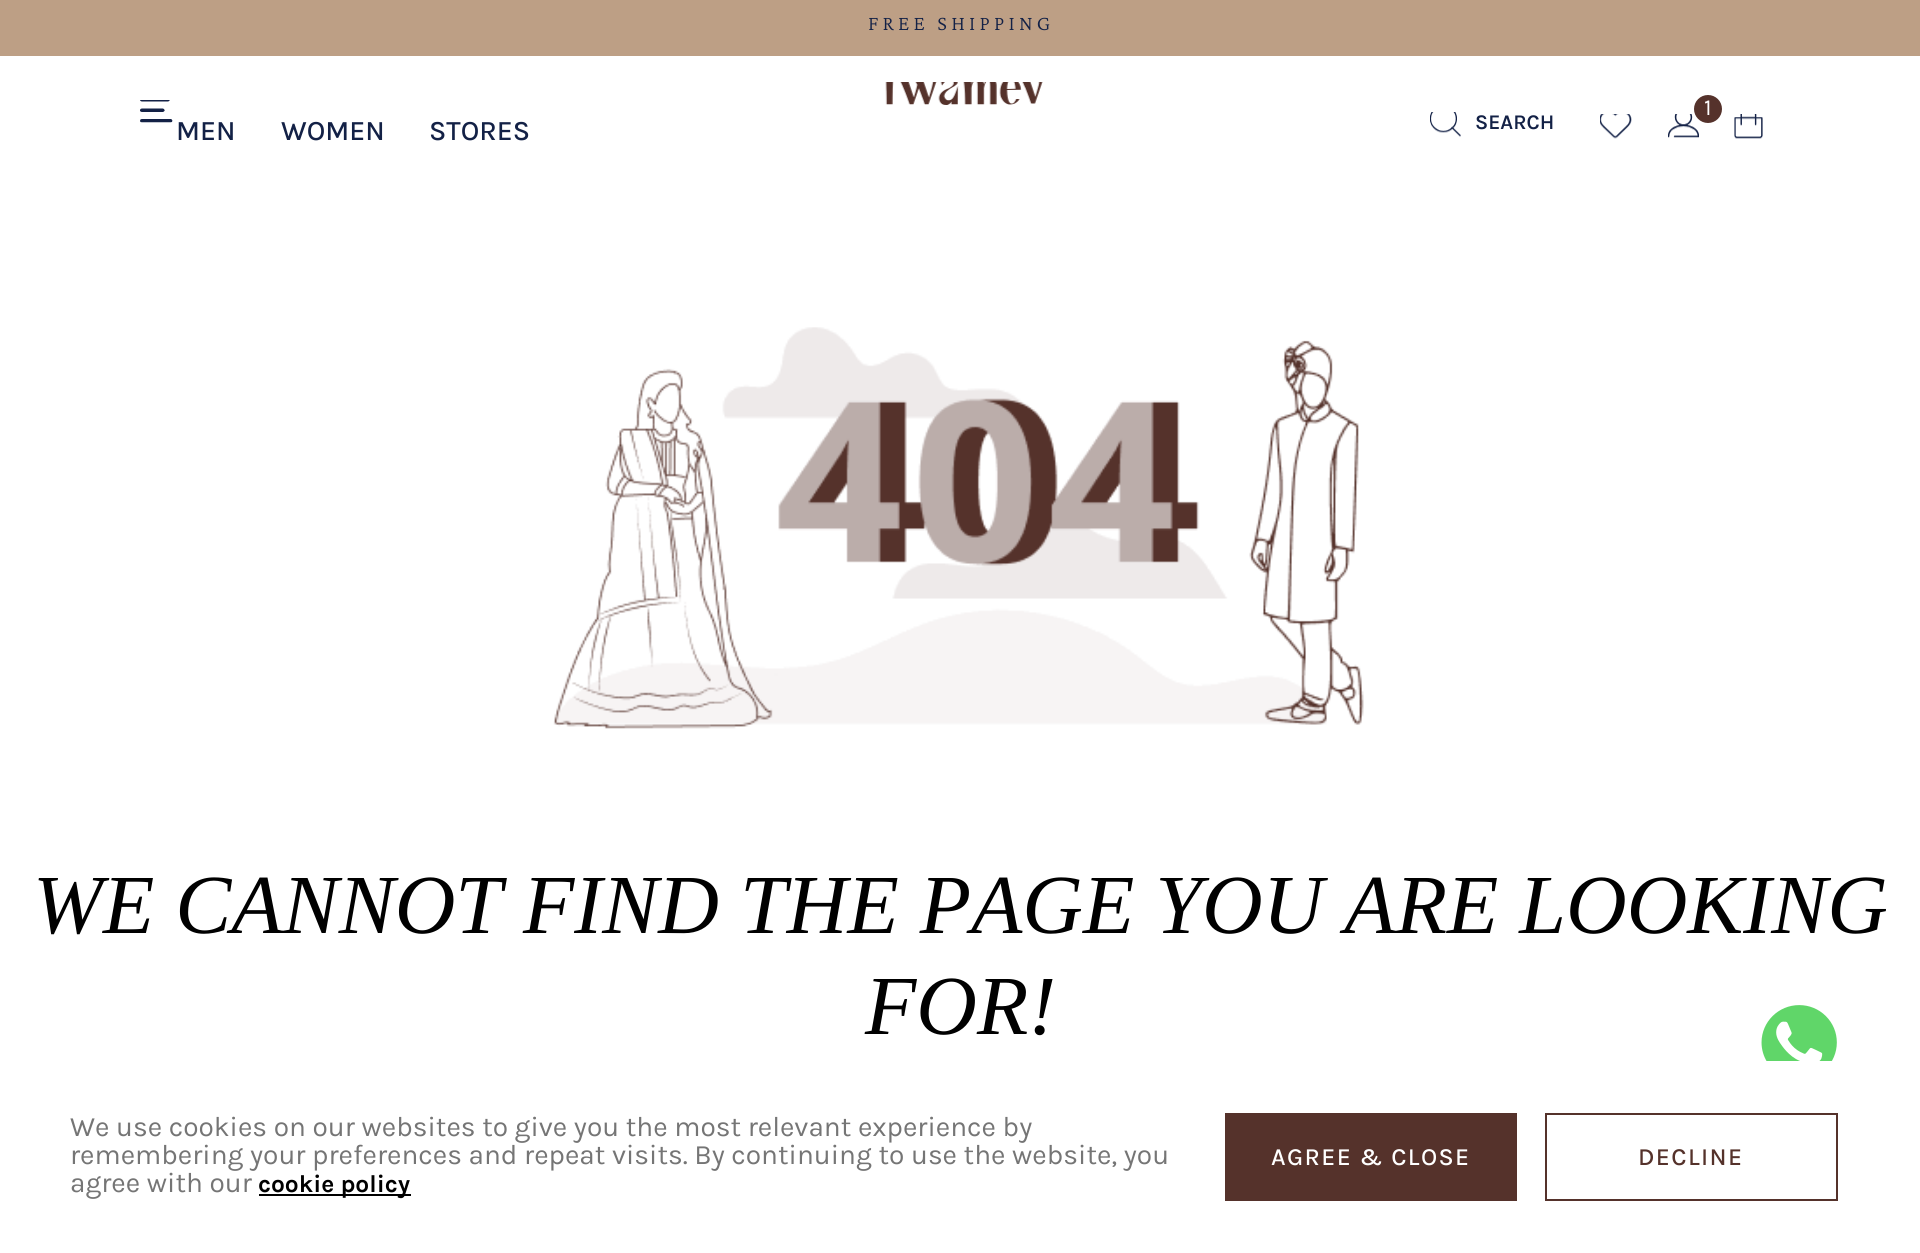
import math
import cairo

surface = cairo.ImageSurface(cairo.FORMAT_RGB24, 1920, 1253)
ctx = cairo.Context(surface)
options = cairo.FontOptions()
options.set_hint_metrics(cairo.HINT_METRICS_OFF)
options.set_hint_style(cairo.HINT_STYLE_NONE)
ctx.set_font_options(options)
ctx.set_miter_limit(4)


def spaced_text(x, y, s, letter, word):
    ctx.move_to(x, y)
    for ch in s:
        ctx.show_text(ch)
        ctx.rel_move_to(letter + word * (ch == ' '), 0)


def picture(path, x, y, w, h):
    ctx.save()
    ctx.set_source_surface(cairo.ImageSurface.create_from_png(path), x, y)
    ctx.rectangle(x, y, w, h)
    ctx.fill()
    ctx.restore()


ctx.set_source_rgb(1, 1, 1)
ctx.paint()
ctx.set_source_rgb(0.741, 0.624, 0.522)
ctx.rectangle(0, 0, 1920, 56)
ctx.fill()
ctx.select_font_face("Crimson Pro Light")
ctx.set_font_size(21)
ctx.set_source_rgb(0.075, 0.129, 0.275)
spaced_text(868, 30, "FREE SHIPPING", 4.25, 0)
picture("img1.png", 885, 82, 158, 23)
picture("img2.png", 140, 100, 33, 23)
ctx.select_font_face("Karla Medium")
ctx.set_font_size(28)
ctx.move_to(176, 140)
ctx.show_text("MEN")
ctx.move_to(281, 140)
ctx.show_text("WOMEN")
ctx.move_to(429, 140)
ctx.show_text("STORES")
picture("img3.png", 1668, 114, 31, 24)
ctx.set_source_rgb(0.333, 0.196, 0.169)
ctx.arc(1708, 109, 14, 0, 2 * math.pi)
ctx.fill()
ctx.select_font_face("Karla")
ctx.set_font_size(23)
ctx.set_source_rgb(1, 1, 1)
ctx.move_to(1704, 115)
ctx.show_text("1")
picture("img4.png", 1600, 114, 32, 25)
picture("img5.png", 1734, 114, 29, 25)
picture("img6.png", 1430, 112, 31, 25)
ctx.select_font_face("Karla SemiBold")
ctx.set_font_size(21)
ctx.set_source_rgb(0.075, 0.129, 0.275)
ctx.move_to(1475, 129)
ctx.show_text("SEARCH")
picture("img7.png", 553, 327, 811, 402)
ctx.select_font_face("Liberation Serif", cairo.FONT_SLANT_ITALIC)
ctx.set_font_size(84)
ctx.set_source_rgb(0, 0, 0)
ctx.move_to(33, 933)
ctx.show_text("WE CANNOT FIND THE PAGE YOU ARE LOOKING")
ctx.move_to(865, 1034)
ctx.show_text("FOR!")
picture("img8.png", 1761, 1005, 76, 56)
ctx.select_font_face("Karla")
ctx.set_font_size(28)
ctx.set_source_rgb(0.459, 0.459, 0.459)
ctx.move_to(70, 1136)
ctx.show_text("We use cookies on our websites to give you the most relevant experience by")
ctx.move_to(70, 1164)
ctx.show_text("remembering your preferences and repeat visits. By continuing to use the website, you")
ctx.move_to(70, 1192)
ctx.show_text("agree with our")
ctx.set_source_rgb(0, 0, 0)
ctx.rectangle(259, 1194, 152, 2)
ctx.fill()
ctx.select_font_face("Karla", cairo.FONT_SLANT_NORMAL, cairo.FONT_WEIGHT_BOLD)
ctx.set_font_size(24.5)
ctx.move_to(258, 1192)
ctx.show_text("cookie policy")
ctx.set_source_rgb(0.333, 0.196, 0.169)
ctx.rectangle(1225, 1113, 292, 88)
ctx.fill()
ctx.select_font_face("Karla Medium")
ctx.set_source_rgb(1, 1, 1)
spaced_text(1271, 1165, "AGREE & CLOSE", 1.4, 0)
ctx.rectangle(1546, 1114, 291, 86)
ctx.set_source_rgb(0.333, 0.196, 0.169)
ctx.stroke()
spaced_text(1638, 1165, "DECLINE", 1.4, 0)
surface.write_to_png("page.png")
